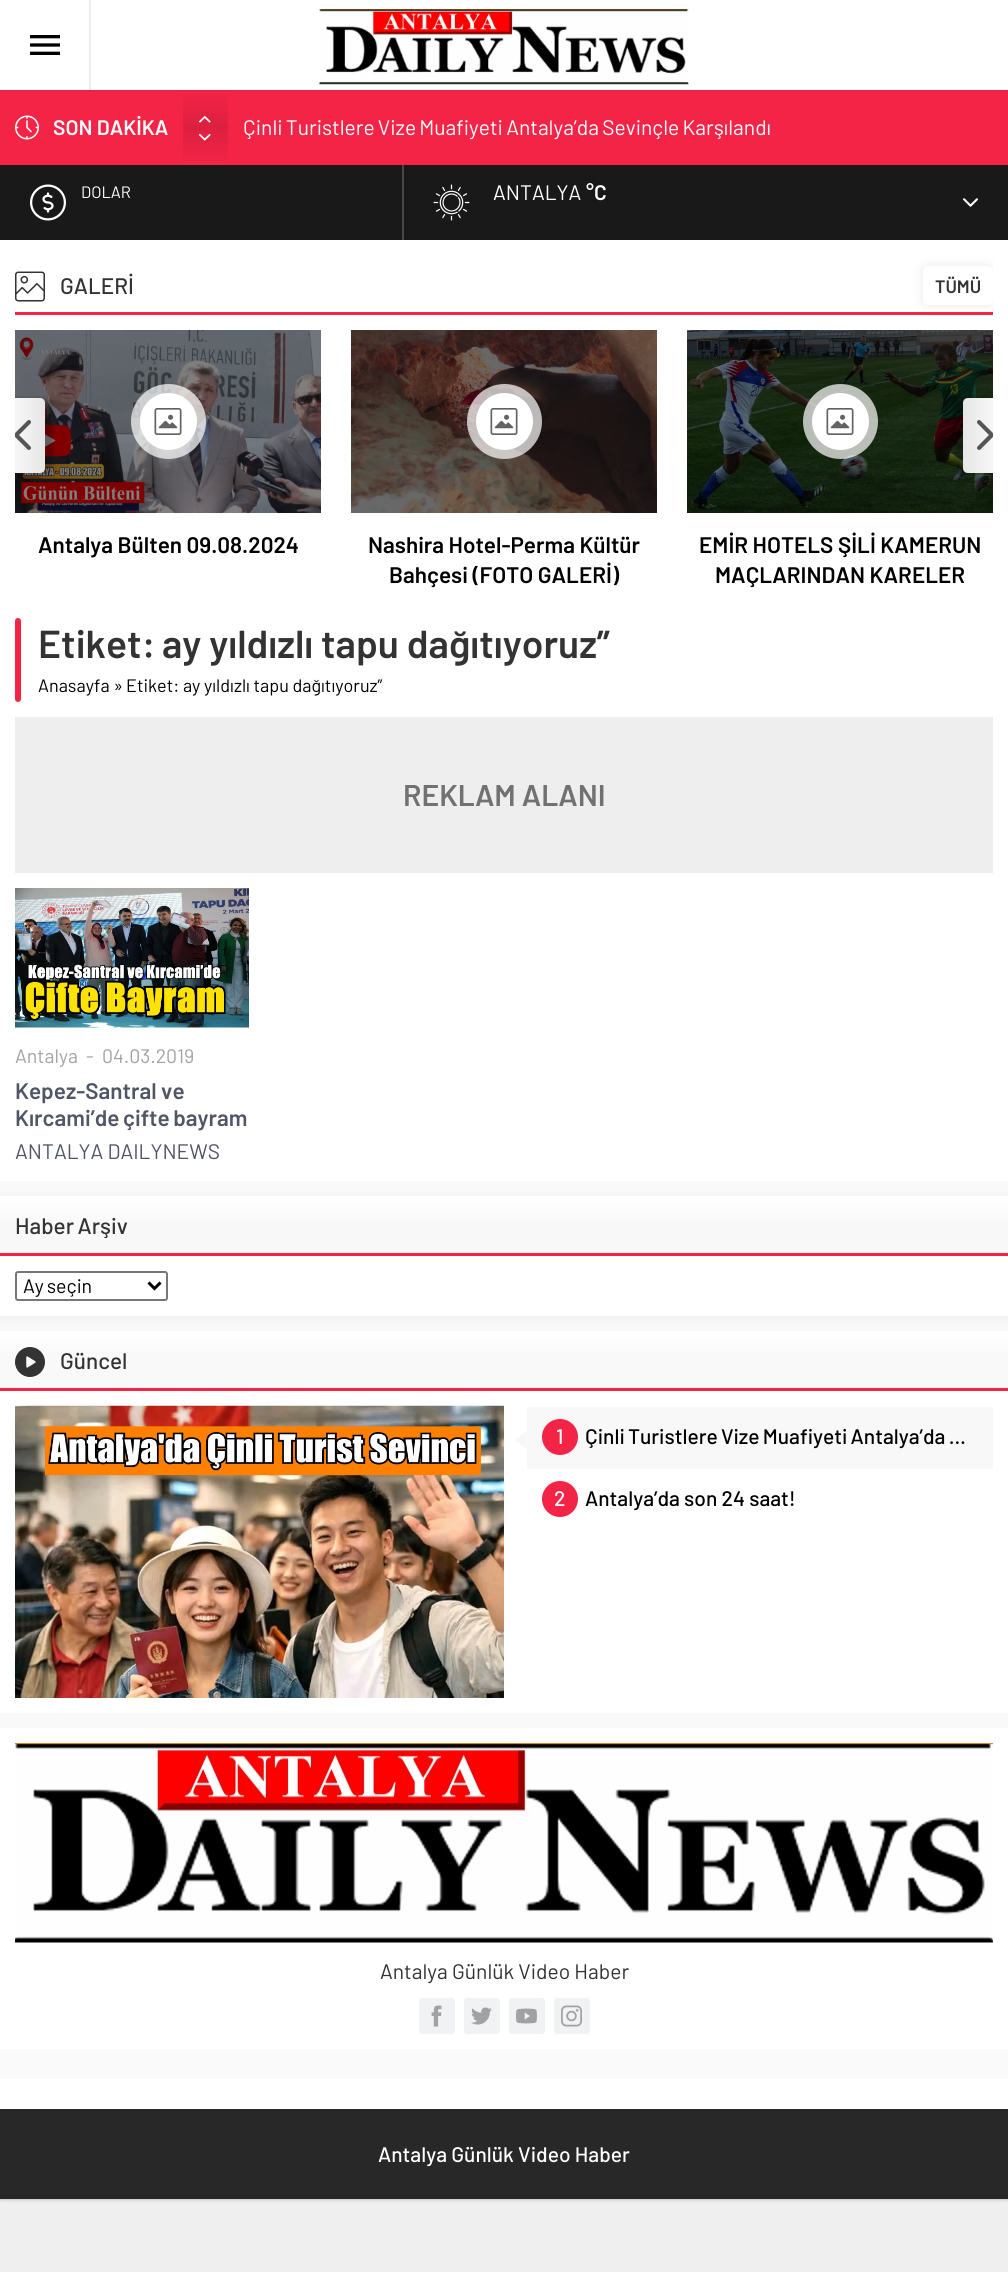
import math
import cairo

surface = cairo.ImageSurface(cairo.FORMAT_RGB24, 1008, 2272)
ctx = cairo.Context(surface)
options = cairo.FontOptions()
options.set_hint_metrics(cairo.HINT_METRICS_OFF)
options.set_hint_style(cairo.HINT_STYLE_NONE)
ctx.set_font_options(options)
ctx.set_miter_limit(4)


def spaced_text(x, y, s, letter, word):
    ctx.move_to(x, y)
    for ch in s:
        ctx.show_text(ch)
        ctx.rel_move_to(letter + word * (ch == ' '), 0)


def round_rect(x, y, w, h, r):
    ctx.new_sub_path()
    for i, (u, v) in enumerate([(x + w - r, y + h - r), (x + r, y + h - r), (x + r, y + r), (x + w - r, y + r)]):
        ctx.arc(u, v, r, i * math.pi / 2, (i + 1) * math.pi / 2)
    ctx.close_path()


def shadow(x, y, w, h, r, blur, alpha):
    ctx.push_group_with_content(cairo.CONTENT_ALPHA)
    ctx.set_operator(cairo.OPERATOR_SOURCE)
    for i in range(15, -16, -2):
        e = blur * i / 6
        if min(w, h) + 2 * e > 0:
            ctx.set_source_rgba(0, 0, 0, alpha * math.erfc((i - 1) / 8.5) / 2)
            round_rect(x - e, y - e, w + 2 * e, h + 2 * e, max(0, min(r + e + blur * .6, min(w, h) / 2 + e)))
            ctx.fill()
    ctx.mask(ctx.pop_group())


def picture(path, x, y, w, h):
    ctx.save()
    ctx.set_source_surface(cairo.ImageSurface.create_from_png(path), x, y)
    ctx.rectangle(x, y, w, h)
    ctx.fill()
    ctx.restore()


ctx.set_source_rgb(0.937, 0.937, 0.937)
ctx.paint()
ctx.set_source_rgb(0, 0, 0)
shadow(0, 90, 1008, 2109, 0, 2, 0.3)
ctx.set_source_rgb(0.973, 0.973, 0.973)
ctx.rectangle(0, 1181, 1008, 547)
ctx.fill()
ctx.set_source_rgb(1, 1, 1)
ctx.rectangle(0, 0, 1008, 90)
ctx.fill()
ctx.set_source_rgb(0.957, 0.141, 0.278)
ctx.rectangle(0, 90, 1008, 75)
ctx.fill()
gradient = cairo.LinearGradient(206, 90, 206, 165)
gradient.add_color_stop_rgba(0, 0.957, 0.141, 0.278, 1)
gradient.add_color_stop_rgba(0.5, 0.863, 0.125, 0.251, 1)
gradient.add_color_stop_rgba(1, 0.957, 0.141, 0.278, 1)
ctx.set_source(gradient)
ctx.rectangle(183, 94, 45, 67)
ctx.fill()
ctx.save()
ctx.rectangle(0, 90, 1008, 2)
ctx.clip()
ctx.set_source_rgb(0, 0, 0)
shadow(0, 0, 1008, 90, 0, 2, 0.15)
ctx.restore()
picture("img1.png", 319, 9, 370, 76)
ctx.set_source_rgb(0.933, 0.933, 0.933)
ctx.rectangle(89, 0, 2, 90)
ctx.fill()
picture("img2.png", 30, 35, 30, 20)
picture("img3.png", 15, 115, 24, 25)
ctx.select_font_face("Barlow SemiBold")
ctx.set_font_size(21)
ctx.set_source_rgb(1, 1, 1)
ctx.move_to(53, 135)
ctx.show_text("SON DAKİKA")
picture("img4.png", 198, 115, 13, 8)
picture("img5.png", 198, 133, 13, 8)
ctx.select_font_face("Barlow")
spaced_text(243, 135, "Çinli Turistlere Vize Muafiyeti Antalya’da Sevinçle Karşılandı", 0, -1)
ctx.set_source_rgb(0.098, 0.098, 0.098)
ctx.rectangle(0, 165, 402, 75)
ctx.fill()
ctx.set_source_rgb(0.278, 0.278, 0.278)
ctx.rectangle(402, 165, 2, 75)
ctx.fill()
picture("img6.png", 30, 184, 36, 37)
ctx.set_font_size(16.5)
ctx.set_source_rgb(1, 1, 1)
ctx.move_to(81, 198)
ctx.show_text("DOLAR")
ctx.set_source_rgb(0.098, 0.098, 0.098)
ctx.rectangle(404, 165, 604, 75)
ctx.fill()
picture("img7.png", 433, 184, 37, 37)
ctx.set_font_size(21)
ctx.set_source_rgb(1, 1, 1)
ctx.move_to(493, 200)
ctx.show_text("ANTALYA")
ctx.select_font_face("Barlow SemiBold")
ctx.move_to(586, 200)
ctx.show_text("°C")
picture("img8.png", 963, 198, 15, 9)
ctx.rectangle(0, 240, 1008, 941)
ctx.fill()
picture("img9.png", 15, 271, 30, 31)
ctx.select_font_face("Barlow Medium")
ctx.set_font_size(22.5)
ctx.set_source_rgb(0.2, 0.2, 0.2)
ctx.move_to(60, 294)
ctx.show_text("GALERİ")
ctx.save()
ctx.rectangle(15, 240, 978, 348)
ctx.clip()
ctx.set_source_rgb(0, 0, 0)
shadow(923, 266, 70, 39, 5, 6, 0.09)
ctx.restore()
ctx.set_source_rgb(1, 1, 1)
round_rect(923, 266, 70, 39, 5)
ctx.fill()
ctx.select_font_face("Barlow SemiBold")
ctx.set_font_size(18)
ctx.set_source_rgb(0.2, 0.2, 0.2)
ctx.move_to(935, 293)
ctx.show_text("TÜMÜ")
ctx.set_source_rgb(0.957, 0.141, 0.278)
ctx.rectangle(15, 312, 978, 3)
ctx.fill()
picture("img12.png", 15, 330, 306, 183)
ctx.save()
ctx.rectangle(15, 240, 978, 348)
ctx.clip()
ctx.set_source_rgb(0, 0, 0)
shadow(8, 398, 45, 75, 5, 2, 0.25)
ctx.restore()
gradient = cairo.LinearGradient(0, 435, 45, 435)
gradient.add_color_stop_rgba(0, 1, 1, 1, 1)
gradient.add_color_stop_rgba(1, 0.902, 0.902, 0.902, 1)
ctx.set_source(gradient)
ctx.new_path()
ctx.move_to(15, 398)
ctx.line_to(40, 398)
ctx.curve_to(43, 398, 45, 400, 45, 403)
ctx.line_to(45, 468)
ctx.curve_to(45, 471, 43, 473, 40, 473)
ctx.line_to(15, 473)
ctx.close_path()
ctx.fill()
picture("img10.png", 15, 420, 16, 30)
picture("img15.png", 687, 330, 306, 183)
ctx.save()
ctx.rectangle(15, 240, 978, 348)
ctx.clip()
ctx.set_source_rgb(0, 0, 0)
shadow(956, 398, 45, 75, 5, 2, 0.25)
ctx.restore()
gradient = cairo.LinearGradient(963, 435, 1008, 435)
gradient.add_color_stop_rgba(0, 0.902, 0.902, 0.902, 1)
gradient.add_color_stop_rgba(1, 1, 1, 1, 1)
ctx.set_source(gradient)
ctx.new_path()
ctx.move_to(968, 398)
ctx.line_to(993, 398)
ctx.line_to(993, 473)
ctx.line_to(968, 473)
ctx.curve_to(965, 473, 963, 471, 963, 468)
ctx.line_to(963, 403)
ctx.curve_to(963, 400, 965, 398, 968, 398)
ctx.close_path()
ctx.fill()
picture("img11.png", 977, 420, 16, 30)
ctx.set_source_rgba(1, 1, 1, 0.7)
ctx.arc(168.5, 421.5, 37.5, 0, 2 * math.pi)
ctx.fill()
ctx.set_source_rgb(1, 1, 1)
ctx.arc(168.5, 421.5, 28.5, 0, 2 * math.pi)
ctx.fill()
picture("img13.png", 154, 408, 28, 27)
ctx.set_font_size(22.5)
ctx.set_source_rgb(0, 0, 0)
ctx.move_to(38, 553)
ctx.show_text("Antalya Bülten 09.08.2024")
picture("img14.png", 351, 330, 306, 183)
ctx.set_source_rgba(1, 1, 1, 0.7)
ctx.arc(504.5, 421.5, 37.5, 0, 2 * math.pi)
ctx.fill()
ctx.set_source_rgb(1, 1, 1)
ctx.arc(504.5, 421.5, 28.5, 0, 2 * math.pi)
ctx.fill()
picture("img13.png", 490, 408, 28, 27)
ctx.set_source_rgb(0, 0, 0)
ctx.move_to(368, 553)
ctx.show_text("Nashira Hotel-Perma Kültür")
ctx.move_to(389, 583)
ctx.show_text("Bahçesi (FOTO GALERİ)")
ctx.set_source_rgba(1, 1, 1, 0.7)
ctx.new_path()
ctx.arc(840.5, 421.5, 37.5, 0, 2 * math.pi)
ctx.fill()
ctx.set_source_rgb(1, 1, 1)
ctx.arc(840.5, 421.5, 28.5, 0, 2 * math.pi)
ctx.fill()
picture("img13.png", 826, 408, 28, 27)
ctx.set_source_rgb(0, 0, 0)
ctx.move_to(699, 553)
ctx.show_text("EMİR HOTELS ŞİLİ KAMERUN")
ctx.move_to(715, 583)
ctx.show_text("MAÇLARINDAN KARELER")
ctx.set_source_rgb(0.957, 0.141, 0.278)
round_rect(15, 618, 6, 84, 3)
ctx.fill()
ctx.set_font_size(39)
ctx.set_source_rgb(0.2, 0.2, 0.2)
ctx.move_to(38, 658)
ctx.show_text("Etiket:")
ctx.move_to(162, 658)
ctx.show_text("ay yıldızlı tapu dağıtıyoruz”")
ctx.select_font_face("Barlow")
ctx.set_font_size(18)
ctx.set_source_rgb(0, 0, 0)
ctx.move_to(38, 692)
ctx.show_text("Anasayfa »")
ctx.move_to(126, 692)
ctx.show_text("Etiket: ay yıldızlı tapu dağıtıyoruz”")
ctx.set_source_rgb(0.933, 0.933, 0.933)
ctx.rectangle(15, 717, 978, 156)
ctx.fill()
ctx.select_font_face("Barlow SemiBold")
ctx.set_font_size(30)
ctx.set_source_rgb(0.443, 0.443, 0.443)
ctx.move_to(403, 806)
ctx.show_text("REKLAM ALANI")
picture("img16.png", 15, 888, 234, 140)
ctx.select_font_face("Barlow")
ctx.set_font_size(19.5)
ctx.set_source_rgb(0.635, 0.635, 0.635)
ctx.move_to(15, 1063)
ctx.show_text("Antalya")
ctx.move_to(86, 1063)
ctx.show_text("-")
ctx.move_to(102, 1063)
ctx.show_text("04.03.2019")
ctx.select_font_face("Barlow SemiBold")
ctx.set_font_size(22.5)
ctx.set_source_rgb(0.314, 0.337, 0.4)
ctx.move_to(15, 1099)
ctx.show_text("Kepez-Santral ve")
spaced_text(15, 1126, "Kırcami’de çifte bayram", 0, -1)
ctx.select_font_face("Barlow")
ctx.set_font_size(21)
ctx.move_to(15, 1159)
ctx.show_text("ANTALYA DAILYNEWS")
ctx.set_source_rgb(0, 0, 0)
shadow(0, 1199, 1008, 120, 0, 6, 0.05)
ctx.set_source_rgb(1, 1, 1)
ctx.rectangle(0, 1256, 1008, 60)
ctx.fill()
gradient = cairo.LinearGradient(504, 1196, 504, 1256)
gradient.add_color_stop_rgba(0, 1, 1, 1, 1)
gradient.add_color_stop_rgba(0.5, 0.973, 0.973, 0.973, 1)
ctx.set_source(gradient)
ctx.rectangle(0, 1196, 1008, 57)
ctx.fill()
ctx.select_font_face("Barlow Medium")
ctx.set_font_size(22.5)
ctx.set_source_rgb(0.2, 0.2, 0.2)
spaced_text(15, 1234, "Haber Arşiv", 0, -1)
ctx.set_source_rgb(0.957, 0.141, 0.278)
ctx.rectangle(0, 1253, 1008, 3)
ctx.fill()
round_rect(16, 1272, 151, 28, 2)
ctx.set_source_rgb(0.463, 0.463, 0.463)
ctx.stroke()
ctx.new_path()
ctx.move_to(148.5, 1282.5)
ctx.line_to(154.5, 1288.5)
ctx.line_to(160.5, 1282.5)
ctx.set_source_rgb(0, 0, 0)
ctx.set_line_width(3)
ctx.stroke()
ctx.select_font_face("Barlow")
ctx.set_font_size(19.5)
spaced_text(23, 1293, "Ay seçin", 0, -1)
ctx.set_source_rgb(1, 1, 1)
ctx.rectangle(0, 1391, 1008, 322)
ctx.fill()
gradient = cairo.LinearGradient(504, 1331, 504, 1391)
gradient.add_color_stop_rgba(0, 1, 1, 1, 1)
gradient.add_color_stop_rgba(0.5, 0.973, 0.973, 0.973, 1)
ctx.set_source(gradient)
ctx.rectangle(0, 1331, 1008, 19)
ctx.fill()
picture("img17.png", 15, 1347, 30, 30)
ctx.select_font_face("Barlow Medium")
ctx.set_font_size(22.5)
ctx.set_source_rgb(0.2, 0.2, 0.2)
ctx.move_to(60, 1369)
ctx.show_text("Güncel")
ctx.set_source_rgb(0.957, 0.141, 0.278)
ctx.rectangle(0, 1388, 1008, 3)
ctx.fill()
picture("img18.png", 15, 1405, 489, 293)
ctx.set_source_rgb(0.969, 0.969, 0.969)
ctx.rectangle(527, 1407, 466, 62)
ctx.fill()
ctx.new_path()
ctx.move_to(526.5, 1431)
ctx.line_to(526.5, 1449)
ctx.line_to(514.5, 1440)
ctx.close_path()
ctx.fill()
ctx.set_source_rgb(0.957, 0.141, 0.278)
ctx.arc(560, 1437, 18, 0, 2 * math.pi)
ctx.fill()
ctx.set_font_size(21)
ctx.set_source_rgb(1, 1, 1)
ctx.move_to(556, 1444)
ctx.show_text("1")
ctx.set_source_rgb(0, 0, 0)
spaced_text(585, 1444, "Çinli Turistlere Vize Muafiyeti Antalya’da …", 0, -1)
ctx.set_source_rgb(0.957, 0.141, 0.278)
ctx.new_path()
ctx.arc(560, 1499, 18, 0, 2 * math.pi)
ctx.fill()
ctx.set_source_rgb(1, 1, 1)
ctx.move_to(554, 1506)
ctx.show_text("2")
ctx.set_source_rgb(0, 0, 0)
ctx.move_to(585, 1506)
ctx.show_text("Antalya’da son 24 saat!")
ctx.set_source_rgb(1, 1, 1)
ctx.rectangle(0, 1728, 1008, 381)
ctx.fill()
picture("img19.png", 15, 1743, 978, 200)
ctx.select_font_face("Barlow")
ctx.set_source_rgb(0.2, 0.2, 0.2)
ctx.move_to(380, 1979)
ctx.show_text("Antalya Günlük Video Haber")
ctx.set_source_rgb(0.945, 0.949, 0.953)
round_rect(419, 1998, 36, 36, 3)
ctx.fill()
picture("img20.png", 431, 2005, 11, 22)
round_rect(464, 1998, 36, 36, 3)
ctx.fill()
picture("img21.png", 471, 2007, 21, 18)
round_rect(509, 1998, 36, 36, 3)
ctx.fill()
picture("img22.png", 516, 2008, 21, 16)
round_rect(554, 1998, 36, 36, 3)
ctx.fill()
picture("img23.png", 561, 2005, 21, 22)
ctx.set_source_rgb(0.98, 0.98, 0.98)
ctx.rectangle(0, 2049, 1008, 30)
ctx.fill()
ctx.set_source_rgb(0.157, 0.157, 0.157)
ctx.rectangle(0, 2109, 1008, 90)
ctx.fill()
ctx.select_font_face("Barlow Medium")
ctx.set_source_rgb(1, 1, 1)
ctx.move_to(378, 2162)
ctx.show_text("Antalya Günlük Video Haber")
surface.write_to_png("page.png")
